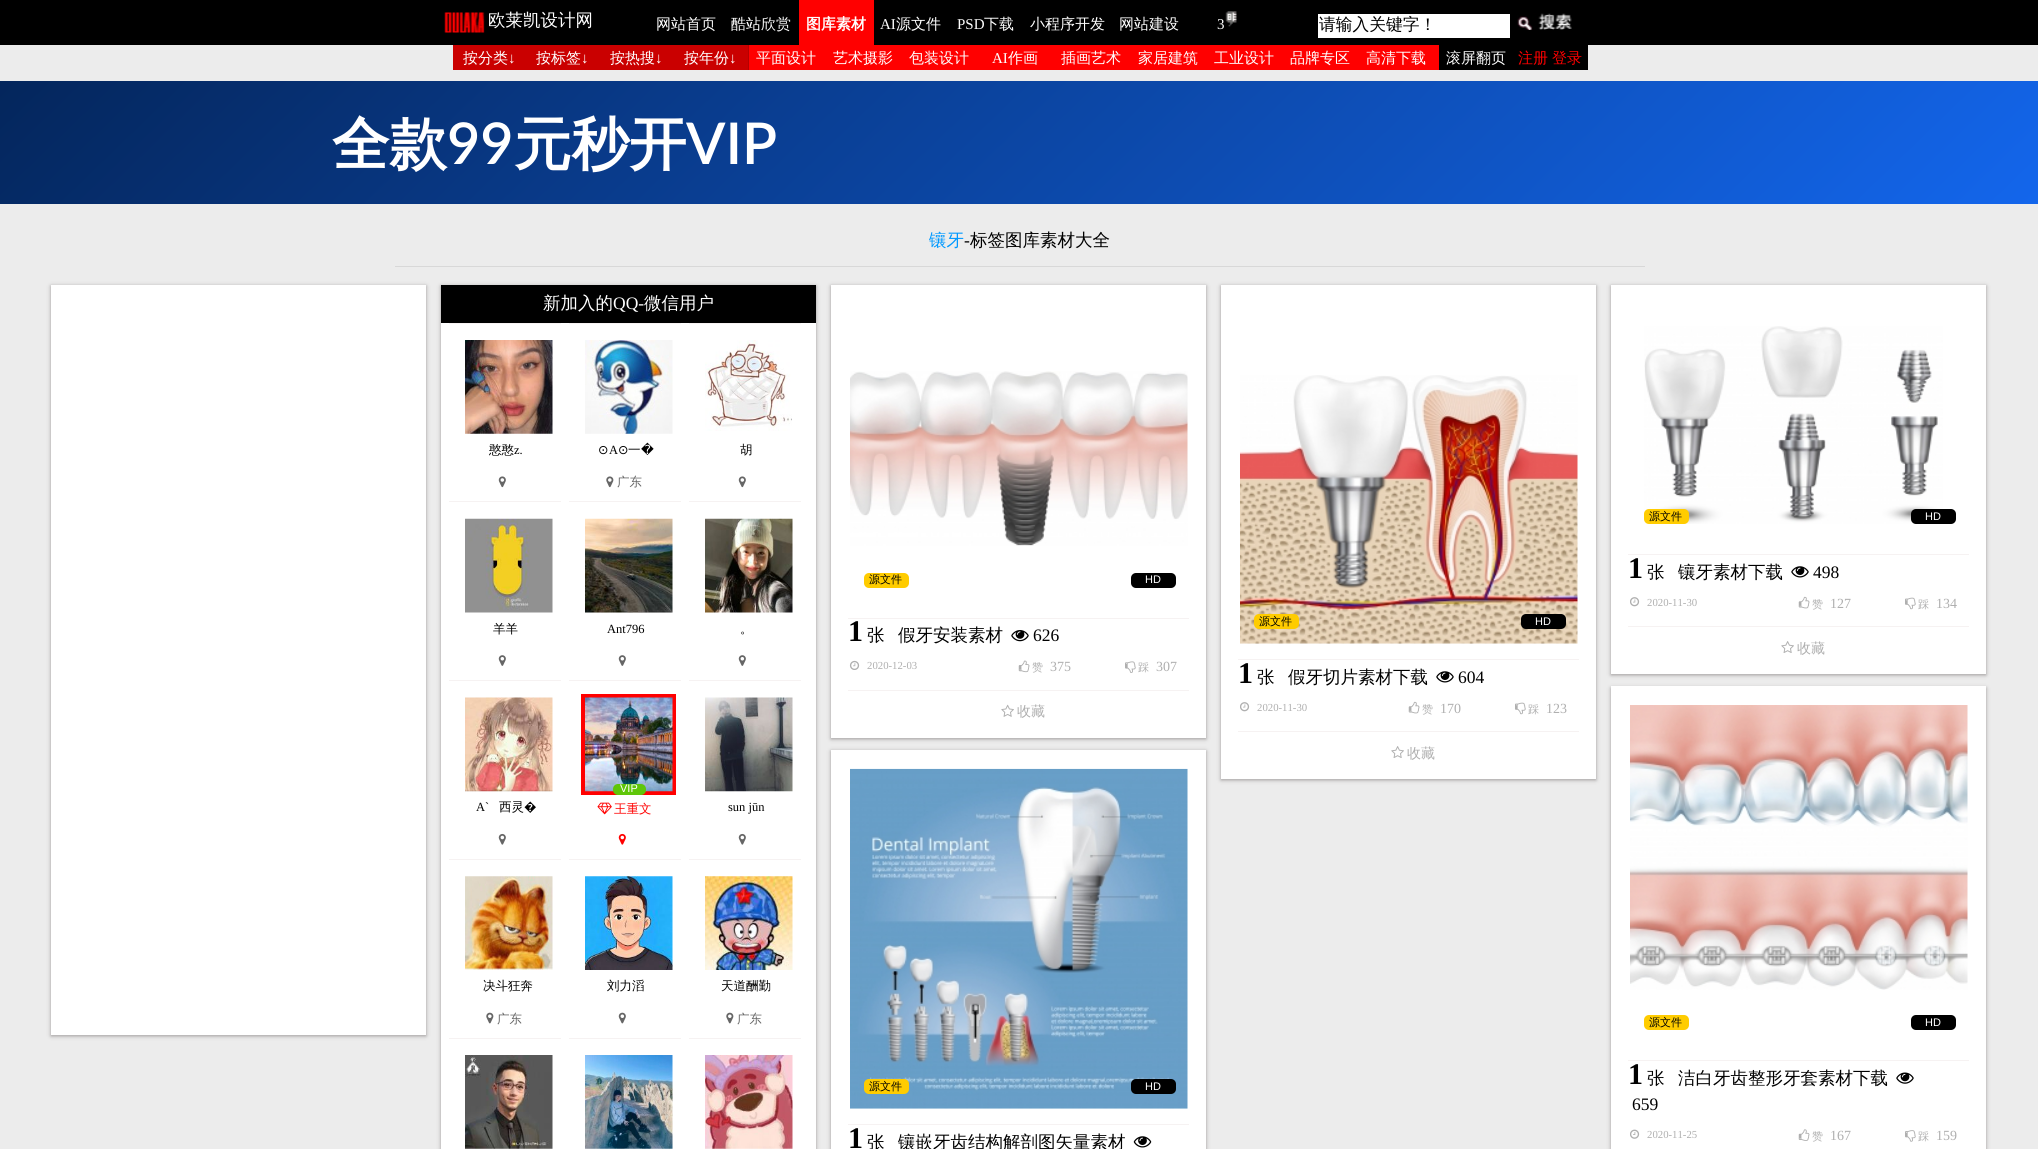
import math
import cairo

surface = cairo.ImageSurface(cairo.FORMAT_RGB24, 2038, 1149)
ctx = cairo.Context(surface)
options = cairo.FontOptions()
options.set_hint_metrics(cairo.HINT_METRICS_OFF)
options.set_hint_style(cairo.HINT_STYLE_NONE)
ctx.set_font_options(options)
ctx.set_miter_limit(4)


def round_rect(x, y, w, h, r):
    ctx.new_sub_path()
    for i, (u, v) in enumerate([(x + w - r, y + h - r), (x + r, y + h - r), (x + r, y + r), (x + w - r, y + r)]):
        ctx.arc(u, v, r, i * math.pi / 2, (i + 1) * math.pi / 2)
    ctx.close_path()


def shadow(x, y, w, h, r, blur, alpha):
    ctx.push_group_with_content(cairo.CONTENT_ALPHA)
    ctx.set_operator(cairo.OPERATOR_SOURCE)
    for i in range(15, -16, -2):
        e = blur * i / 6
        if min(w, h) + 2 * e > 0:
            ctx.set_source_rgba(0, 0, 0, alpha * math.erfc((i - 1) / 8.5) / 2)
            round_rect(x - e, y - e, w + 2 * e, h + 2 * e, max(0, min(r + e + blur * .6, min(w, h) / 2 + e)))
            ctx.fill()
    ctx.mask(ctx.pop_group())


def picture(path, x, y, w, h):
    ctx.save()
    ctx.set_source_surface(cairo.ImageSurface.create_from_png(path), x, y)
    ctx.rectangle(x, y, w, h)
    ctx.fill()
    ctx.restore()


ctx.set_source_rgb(0.925, 0.925, 0.925)
ctx.paint()
ctx.set_source_rgb(0, 0, 0)
ctx.rectangle(0, 0, 2038, 45)
ctx.fill()
picture("img1.png", 444, 12, 41, 21)
ctx.select_font_face("WenQuanYi Zen Hei Medium")
ctx.set_font_size(17.5)
ctx.set_source_rgb(1, 1, 1)
ctx.move_to(488, 26)
ctx.show_text("欧莱凯设计网")
ctx.set_font_size(15)
ctx.move_to(656, 29)
ctx.show_text("网站首页")
ctx.move_to(731, 29)
ctx.show_text("酷站欣赏")
ctx.set_source_rgb(1, 0, 0)
ctx.rectangle(799, 0, 75, 45)
ctx.fill()
ctx.select_font_face("WenQuanYi Zen Hei", cairo.FONT_SLANT_NORMAL, cairo.FONT_WEIGHT_BOLD)
ctx.set_source_rgb(1, 1, 1)
ctx.move_to(806, 29)
ctx.show_text("图库素材")
ctx.select_font_face("Liberation Serif")
ctx.move_to(880, 29)
ctx.show_text("AI")
ctx.select_font_face("WenQuanYi Zen Hei Medium")
ctx.move_to(896, 29)
ctx.show_text("源文件")
ctx.select_font_face("Liberation Serif")
ctx.move_to(957, 29)
ctx.show_text("PSD")
ctx.select_font_face("WenQuanYi Zen Hei Medium")
ctx.move_to(984, 29)
ctx.show_text("下载")
ctx.move_to(1030, 29)
ctx.show_text("小程序开发")
ctx.move_to(1119, 29)
ctx.show_text("网站建设")
ctx.select_font_face("Liberation Serif")
ctx.move_to(1217, 29)
ctx.show_text("3")
picture("img2.png", 1224, 11, 13, 34)
ctx.rectangle(1318, 14, 192, 24)
ctx.fill()
ctx.select_font_face("WenQuanYi Zen Hei Medium")
ctx.set_font_size(16.75)
ctx.set_source_rgb(0, 0, 0)
ctx.move_to(1319, 30)
ctx.show_text("请输入关键字！")
picture("img3.png", 1517, 13, 55, 17)
ctx.set_source_rgb(1, 0, 0)
ctx.rectangle(749, 45, 690, 25)
ctx.fill()
ctx.set_source_rgb(0.71, 0, 0)
ctx.rectangle(748, 45, 1, 25)
ctx.fill()
ctx.set_source_rgb(0.792, 0, 0)
ctx.rectangle(453, 45, 295, 25)
ctx.fill()
ctx.set_font_size(15)
ctx.set_source_rgb(1, 1, 1)
ctx.move_to(463, 63)
ctx.show_text("按分类")
ctx.select_font_face("Liberation Serif")
ctx.move_to(508, 63)
ctx.show_text("↓")
ctx.select_font_face("WenQuanYi Zen Hei Medium")
ctx.move_to(536, 63)
ctx.show_text("按标签")
ctx.select_font_face("Liberation Serif")
ctx.move_to(581, 63)
ctx.show_text("↓")
ctx.select_font_face("WenQuanYi Zen Hei Medium")
ctx.move_to(610, 63)
ctx.show_text("按热搜")
ctx.select_font_face("Liberation Serif")
ctx.move_to(655, 63)
ctx.show_text("↓")
ctx.select_font_face("WenQuanYi Zen Hei Medium")
ctx.move_to(684, 63)
ctx.show_text("按年份")
ctx.select_font_face("Liberation Serif")
ctx.move_to(729, 63)
ctx.show_text("↓")
ctx.select_font_face("WenQuanYi Zen Hei Medium")
ctx.move_to(756, 63)
ctx.show_text("平面设计")
ctx.move_to(833, 63)
ctx.show_text("艺术摄影")
ctx.move_to(909, 63)
ctx.show_text("包装设计")
ctx.select_font_face("Liberation Serif")
ctx.move_to(992, 63)
ctx.show_text("AI")
ctx.select_font_face("WenQuanYi Zen Hei Medium")
ctx.move_to(1008, 63)
ctx.show_text("作画")
ctx.move_to(1061, 63)
ctx.show_text("插画艺术")
ctx.move_to(1138, 63)
ctx.show_text("家居建筑")
ctx.move_to(1214, 63)
ctx.show_text("工业设计")
ctx.move_to(1290, 63)
ctx.show_text("品牌专区")
ctx.move_to(1366, 63)
ctx.show_text("高清下载")
ctx.set_source_rgb(0, 0, 0)
ctx.rectangle(1439, 45, 149, 25)
ctx.fill()
ctx.set_source_rgb(1, 1, 1)
ctx.move_to(1446, 63)
ctx.show_text("滚屏翻页")
ctx.set_source_rgb(1, 0, 0)
ctx.move_to(1518, 63)
ctx.show_text("注册")
ctx.move_to(1552, 63)
ctx.show_text("登录")
gradient = cairo.LinearGradient(1542, 684, 497, -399)
gradient.add_color_stop_rgba(0, 0.075, 0.4, 0.925, 1)
gradient.add_color_stop_rgba(1, 0.016, 0.149, 0.361, 1)
ctx.set_source(gradient)
ctx.rectangle(0, 81, 2038, 123)
ctx.fill()
ctx.select_font_face("WenQuanYi Zen Hei", cairo.FONT_SLANT_NORMAL, cairo.FONT_WEIGHT_BOLD)
ctx.set_font_size(57.5)
ctx.set_source_rgb(1, 1, 1)
ctx.move_to(332, 164)
ctx.show_text("全款")
ctx.select_font_face("Lato SemiBold")
ctx.move_to(447, 164)
ctx.show_text("99")
ctx.select_font_face("WenQuanYi Zen Hei", cairo.FONT_SLANT_NORMAL, cairo.FONT_WEIGHT_BOLD)
ctx.move_to(514, 164)
ctx.show_text("元秒开")
ctx.select_font_face("Lato SemiBold")
ctx.move_to(686, 164)
ctx.show_text("VIP")
ctx.set_source_rgb(0.847, 0.847, 0.847)
ctx.rectangle(395, 266, 1250, 1)
ctx.fill()
ctx.select_font_face("WenQuanYi Zen Hei Medium")
ctx.set_font_size(17.5)
ctx.set_source_rgb(0, 0.6, 1)
ctx.move_to(929, 246)
ctx.show_text("镶牙")
ctx.select_font_face("Liberation Serif")
ctx.set_source_rgb(0, 0, 0)
ctx.move_to(964, 246)
ctx.show_text("-")
ctx.select_font_face("WenQuanYi Zen Hei Medium")
ctx.move_to(970, 246)
ctx.show_text("标签图库素材大全")
ctx.set_source_rgb(0.133, 0.098, 0.098)
shadow(51, 286, 375, 750, 0, 2, 0.4)
ctx.set_source_rgb(1, 1, 1)
ctx.rectangle(51, 285, 375, 750)
ctx.fill()
ctx.set_source_rgb(0.133, 0.098, 0.098)
shadow(441, 286, 375, 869, 0, 2, 0.4)
ctx.set_source_rgb(1, 1, 1)
ctx.rectangle(441, 323, 375, 826)
ctx.fill()
ctx.set_source_rgb(0, 0, 0)
ctx.rectangle(441, 285, 375, 38)
ctx.fill()
ctx.set_source_rgb(1, 1, 1)
ctx.move_to(543, 309)
ctx.show_text("新加入的")
ctx.select_font_face("Liberation Serif")
ctx.move_to(613, 309)
ctx.show_text("QQ-")
ctx.select_font_face("WenQuanYi Zen Hei Medium")
ctx.move_to(644, 309)
ctx.show_text("微信用户")
ctx.set_source_rgb(0.961, 0.949, 0.949)
ctx.rectangle(449, 323, 112, 1)
ctx.fill()
picture("img4.png", 465, 340, 88, 94)
ctx.set_font_size(12.5)
ctx.set_source_rgb(0, 0, 0)
ctx.move_to(489, 454)
ctx.show_text("憨憨")
ctx.select_font_face("Liberation Serif")
ctx.move_to(514, 454)
ctx.show_text("z.")
picture("img5.png", 498, 476, 8, 12)
ctx.set_source_rgb(0.961, 0.949, 0.949)
ctx.rectangle(569, 323, 112, 1)
ctx.fill()
picture("img6.png", 585, 340, 88, 94)
ctx.select_font_face("DejaVu Sans")
ctx.set_source_rgb(0, 0, 0)
ctx.move_to(598, 454)
ctx.show_text("⊙")
ctx.select_font_face("Liberation Serif")
ctx.move_to(609, 454)
ctx.show_text("A")
ctx.select_font_face("DejaVu Sans")
ctx.move_to(618, 454)
ctx.show_text("⊙")
ctx.select_font_face("WenQuanYi Zen Hei Medium")
ctx.move_to(628, 454)
ctx.show_text("一")
ctx.select_font_face("DejaVu Sans")
ctx.move_to(641, 454)
ctx.show_text("�")
picture("img7.png", 606, 476, 8, 12)
ctx.select_font_face("WenQuanYi Zen Hei Medium")
ctx.set_source_rgb(0.4, 0.4, 0.4)
ctx.move_to(617, 486)
ctx.show_text("广东")
ctx.set_source_rgb(0.961, 0.949, 0.949)
ctx.rectangle(689, 323, 112, 1)
ctx.fill()
picture("img8.png", 705, 340, 87, 91)
ctx.set_source_rgb(0, 0, 0)
ctx.move_to(740, 454)
ctx.show_text("胡")
picture("img5.png", 738, 476, 8, 12)
ctx.set_source_rgb(0.961, 0.949, 0.949)
ctx.rectangle(449, 501, 112, 1)
ctx.fill()
picture("img9.png", 465, 518, 88, 95)
ctx.set_source_rgb(0, 0, 0)
ctx.move_to(493, 633)
ctx.show_text("羊羊")
picture("img10.png", 498, 655, 8, 11)
ctx.set_source_rgb(0.961, 0.949, 0.949)
ctx.rectangle(569, 501, 112, 1)
ctx.fill()
picture("img11.png", 585, 518, 88, 95)
ctx.select_font_face("Liberation Serif")
ctx.set_source_rgb(0, 0, 0)
ctx.move_to(607, 633)
ctx.show_text("Ant796")
picture("img10.png", 618, 655, 8, 11)
ctx.set_source_rgb(0.961, 0.949, 0.949)
ctx.rectangle(689, 501, 112, 1)
ctx.fill()
picture("img12.png", 705, 518, 88, 95)
ctx.select_font_face("WenQuanYi Zen Hei Medium")
ctx.set_source_rgb(0, 0, 0)
ctx.move_to(740, 633)
ctx.show_text("。")
picture("img10.png", 738, 655, 8, 11)
ctx.set_source_rgb(0.961, 0.949, 0.949)
ctx.rectangle(449, 680, 112, 1)
ctx.fill()
picture("img13.png", 465, 697, 88, 95)
ctx.select_font_face("Liberation Serif")
ctx.set_source_rgb(0, 0, 0)
ctx.move_to(476, 811)
ctx.show_text("A`")
ctx.select_font_face("WenQuanYi Zen Hei Medium")
ctx.move_to(499, 811)
ctx.show_text("西灵")
ctx.select_font_face("Noto Sans")
ctx.move_to(524, 811)
ctx.show_text("�")
picture("img14.png", 498, 833, 8, 12)
ctx.set_source_rgb(0.961, 0.949, 0.949)
ctx.rectangle(569, 680, 112, 1)
ctx.fill()
ctx.rectangle(583, 696, 91, 97)
ctx.set_source_rgb(1, 0, 0)
ctx.set_line_width(4)
ctx.stroke()
picture("img15.png", 585, 697, 88, 95)
ctx.set_source_rgb(0.373, 0.776, 0.039)
round_rect(613, 784, 33, 11, 5)
ctx.fill()
ctx.select_font_face("Liberation Sans")
ctx.set_font_size(11)
ctx.set_source_rgb(1, 1, 1)
ctx.move_to(620, 792)
ctx.show_text("VIP")
picture("img16.png", 597, 802, 15, 13)
ctx.select_font_face("WenQuanYi Zen Hei Medium")
ctx.set_font_size(12.5)
ctx.set_source_rgb(1, 0, 0)
ctx.move_to(614, 813)
ctx.show_text("王重文")
picture("img17.png", 618, 833, 8, 12)
ctx.set_source_rgb(0.961, 0.949, 0.949)
ctx.rectangle(689, 680, 112, 1)
ctx.fill()
picture("img18.png", 705, 697, 88, 95)
ctx.select_font_face("Liberation Serif")
ctx.set_source_rgb(0, 0, 0)
ctx.move_to(728, 811)
ctx.show_text("sun jūn")
picture("img14.png", 738, 833, 8, 12)
ctx.set_source_rgb(0.961, 0.949, 0.949)
ctx.rectangle(449, 859, 112, 1)
ctx.fill()
picture("img19.png", 465, 876, 88, 94)
ctx.select_font_face("WenQuanYi Zen Hei Medium")
ctx.set_source_rgb(0, 0, 0)
ctx.move_to(483, 990)
ctx.show_text("决斗狂奔")
picture("img20.png", 486, 1012, 8, 12)
ctx.set_source_rgb(0.4, 0.4, 0.4)
ctx.move_to(497, 1023)
ctx.show_text("广东")
ctx.set_source_rgb(0.961, 0.949, 0.949)
ctx.rectangle(569, 859, 112, 1)
ctx.fill()
picture("img21.png", 585, 876, 88, 94)
ctx.set_source_rgb(0, 0, 0)
ctx.move_to(607, 990)
ctx.show_text("刘力滔")
picture("img22.png", 618, 1012, 8, 12)
ctx.set_source_rgb(0.961, 0.949, 0.949)
ctx.rectangle(689, 859, 112, 1)
ctx.fill()
picture("img23.png", 705, 876, 88, 94)
ctx.set_source_rgb(0, 0, 0)
ctx.move_to(721, 990)
ctx.show_text("天道酬勤")
picture("img20.png", 726, 1012, 8, 12)
ctx.set_source_rgb(0.4, 0.4, 0.4)
ctx.move_to(737, 1023)
ctx.show_text("广东")
ctx.set_source_rgb(0.961, 0.949, 0.949)
ctx.rectangle(449, 1038, 112, 1)
ctx.fill()
picture("img24.png", 465, 1055, 88, 94)
ctx.rectangle(569, 1038, 112, 1)
ctx.fill()
picture("img25.png", 585, 1055, 88, 94)
ctx.rectangle(689, 1038, 112, 1)
ctx.fill()
picture("img26.png", 705, 1055, 88, 94)
ctx.set_source_rgb(0.133, 0.098, 0.098)
shadow(831, 286, 375, 453, 0, 2, 0.4)
ctx.set_source_rgb(1, 1, 1)
ctx.rectangle(831, 285, 375, 453)
ctx.fill()
picture("img27.png", 850, 371, 338, 175)
ctx.set_source_rgb(1, 0.8, 0)
round_rect(864, 573, 45, 15, 5)
ctx.fill()
ctx.set_font_size(11)
ctx.set_source_rgb(0, 0, 0)
ctx.move_to(869, 583)
ctx.show_text("源文件")
round_rect(1131, 573, 45, 15, 5)
ctx.fill()
ctx.select_font_face("Liberation Sans")
ctx.set_source_rgb(1, 1, 1)
ctx.move_to(1145, 583)
ctx.show_text("HD")
ctx.set_source_rgb(0.961, 0.949, 0.949)
ctx.rectangle(848, 618, 341, 1)
ctx.fill()
ctx.select_font_face("Liberation Serif", cairo.FONT_SLANT_NORMAL, cairo.FONT_WEIGHT_BOLD)
ctx.set_font_size(30)
ctx.set_source_rgb(0, 0, 0)
ctx.move_to(848, 641)
ctx.show_text("1")
ctx.select_font_face("WenQuanYi Zen Hei Medium")
ctx.set_font_size(17.5)
ctx.move_to(867, 641)
ctx.show_text("张")
ctx.move_to(898, 641)
ctx.show_text("假牙安装素材")
picture("img28.png", 1011, 630, 18, 12)
ctx.select_font_face("Liberation Serif")
ctx.move_to(1033, 641)
ctx.show_text("626")
picture("img29.png", 849, 660, 11, 10)
ctx.set_font_size(10.75)
ctx.set_source_rgb(0.686, 0.686, 0.686)
ctx.move_to(867, 669)
ctx.show_text("2020-12-03")
picture("img30.png", 1018, 660, 12, 13)
ctx.select_font_face("WenQuanYi Zen Hei Medium")
ctx.set_font_size(11)
ctx.move_to(1032, 671)
ctx.show_text("赞")
ctx.select_font_face("Liberation Serif")
ctx.set_font_size(14)
ctx.move_to(1050, 671)
ctx.show_text("375")
picture("img31.png", 1125, 661, 11, 12)
ctx.select_font_face("WenQuanYi Zen Hei Medium")
ctx.set_font_size(11)
ctx.move_to(1138, 671)
ctx.show_text("踩")
ctx.select_font_face("Liberation Serif")
ctx.set_font_size(14)
ctx.move_to(1156, 671)
ctx.show_text("307")
ctx.set_source_rgb(0.961, 0.949, 0.949)
ctx.rectangle(848, 690, 341, 1)
ctx.fill()
picture("img32.png", 1001, 704, 13, 13)
ctx.select_font_face("WenQuanYi Zen Hei Medium")
ctx.set_source_rgb(0.686, 0.686, 0.686)
ctx.move_to(1017, 716)
ctx.show_text("收藏")
ctx.set_source_rgb(0.133, 0.098, 0.098)
shadow(1221, 286, 375, 494, 0, 2, 0.4)
ctx.set_source_rgb(1, 1, 1)
ctx.rectangle(1221, 285, 375, 494)
ctx.fill()
picture("img33.png", 1240, 375, 338, 269)
ctx.set_source_rgb(1, 0.8, 0)
round_rect(1254, 614, 45, 15, 5)
ctx.fill()
ctx.set_font_size(11)
ctx.set_source_rgb(0, 0, 0)
ctx.move_to(1259, 625)
ctx.show_text("源文件")
round_rect(1521, 614, 45, 15, 5)
ctx.fill()
ctx.select_font_face("Liberation Sans")
ctx.set_source_rgb(1, 1, 1)
ctx.move_to(1535, 625)
ctx.show_text("HD")
ctx.set_source_rgb(0.961, 0.949, 0.949)
ctx.rectangle(1238, 659, 341, 1)
ctx.fill()
ctx.select_font_face("Liberation Serif", cairo.FONT_SLANT_NORMAL, cairo.FONT_WEIGHT_BOLD)
ctx.set_font_size(30)
ctx.set_source_rgb(0, 0, 0)
ctx.move_to(1238, 683)
ctx.show_text("1")
ctx.select_font_face("WenQuanYi Zen Hei Medium")
ctx.set_font_size(17.5)
ctx.move_to(1257, 683)
ctx.show_text("张")
ctx.move_to(1288, 683)
ctx.show_text("假牙切片素材下载")
picture("img34.png", 1436, 671, 18, 12)
ctx.select_font_face("Liberation Serif")
ctx.move_to(1458, 683)
ctx.show_text("604")
picture("img35.png", 1240, 702, 10, 10)
ctx.set_font_size(10.75)
ctx.set_source_rgb(0.686, 0.686, 0.686)
ctx.move_to(1257, 711)
ctx.show_text("2020-11-30")
picture("img36.png", 1408, 701, 12, 13)
ctx.select_font_face("WenQuanYi Zen Hei Medium")
ctx.set_font_size(11)
ctx.move_to(1422, 713)
ctx.show_text("赞")
ctx.select_font_face("Liberation Serif")
ctx.set_font_size(14)
ctx.move_to(1440, 713)
ctx.show_text("170")
picture("img37.png", 1515, 702, 11, 13)
ctx.select_font_face("WenQuanYi Zen Hei Medium")
ctx.set_font_size(11)
ctx.move_to(1528, 713)
ctx.show_text("踩")
ctx.select_font_face("Liberation Serif")
ctx.set_font_size(14)
ctx.move_to(1546, 713)
ctx.show_text("123")
ctx.set_source_rgb(0.961, 0.949, 0.949)
ctx.rectangle(1238, 731, 341, 1)
ctx.fill()
picture("img38.png", 1391, 746, 13, 12)
ctx.select_font_face("WenQuanYi Zen Hei Medium")
ctx.set_source_rgb(0.686, 0.686, 0.686)
ctx.move_to(1407, 758)
ctx.show_text("收藏")
ctx.set_source_rgb(0.133, 0.098, 0.098)
shadow(1611, 286, 375, 389, 0, 2, 0.4)
ctx.set_source_rgb(1, 1, 1)
ctx.rectangle(1611, 285, 375, 389)
ctx.fill()
picture("img39.png", 1644, 326, 299, 198)
ctx.set_source_rgb(1, 0.8, 0)
round_rect(1644, 509, 45, 15, 5)
ctx.fill()
ctx.set_font_size(11)
ctx.set_source_rgb(0, 0, 0)
ctx.move_to(1649, 520)
ctx.show_text("源文件")
round_rect(1911, 509, 45, 15, 5)
ctx.fill()
ctx.select_font_face("Liberation Sans")
ctx.set_source_rgb(1, 1, 1)
ctx.move_to(1925, 520)
ctx.show_text("HD")
ctx.set_source_rgb(0.961, 0.949, 0.949)
ctx.rectangle(1628, 554, 341, 1)
ctx.fill()
ctx.select_font_face("Liberation Serif", cairo.FONT_SLANT_NORMAL, cairo.FONT_WEIGHT_BOLD)
ctx.set_font_size(30)
ctx.set_source_rgb(0, 0, 0)
ctx.move_to(1628, 578)
ctx.show_text("1")
ctx.select_font_face("WenQuanYi Zen Hei Medium")
ctx.set_font_size(17.5)
ctx.move_to(1647, 578)
ctx.show_text("张")
ctx.move_to(1678, 578)
ctx.show_text("镶牙素材下载")
picture("img34.png", 1791, 566, 18, 12)
ctx.select_font_face("Liberation Serif")
ctx.move_to(1813, 578)
ctx.show_text("498")
picture("img35.png", 1630, 597, 10, 10)
ctx.set_font_size(10.75)
ctx.set_source_rgb(0.686, 0.686, 0.686)
ctx.move_to(1647, 606)
ctx.show_text("2020-11-30")
picture("img36.png", 1798, 596, 12, 13)
ctx.select_font_face("WenQuanYi Zen Hei Medium")
ctx.set_font_size(11)
ctx.move_to(1812, 608)
ctx.show_text("赞")
ctx.select_font_face("Liberation Serif")
ctx.set_font_size(14)
ctx.move_to(1830, 608)
ctx.show_text("127")
picture("img37.png", 1905, 597, 11, 13)
ctx.select_font_face("WenQuanYi Zen Hei Medium")
ctx.set_font_size(11)
ctx.move_to(1918, 608)
ctx.show_text("踩")
ctx.select_font_face("Liberation Serif")
ctx.set_font_size(14)
ctx.move_to(1936, 608)
ctx.show_text("134")
ctx.set_source_rgb(0.961, 0.949, 0.949)
ctx.rectangle(1628, 626, 341, 1)
ctx.fill()
picture("img38.png", 1781, 641, 13, 12)
ctx.select_font_face("WenQuanYi Zen Hei Medium")
ctx.set_source_rgb(0.686, 0.686, 0.686)
ctx.move_to(1797, 653)
ctx.show_text("收藏")
ctx.set_source_rgb(0.133, 0.098, 0.098)
shadow(831, 751, 375, 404, 0, 2, 0.4)
ctx.set_source_rgb(1, 1, 1)
ctx.rectangle(831, 750, 375, 399)
ctx.fill()
picture("img40.png", 850, 768, 338, 341)
ctx.set_source_rgb(1, 0.8, 0)
round_rect(864, 1079, 45, 15, 5)
ctx.fill()
ctx.set_font_size(11)
ctx.set_source_rgb(0, 0, 0)
ctx.move_to(869, 1090)
ctx.show_text("源文件")
round_rect(1131, 1079, 45, 15, 5)
ctx.fill()
ctx.select_font_face("Liberation Sans")
ctx.set_source_rgb(1, 1, 1)
ctx.move_to(1145, 1090)
ctx.show_text("HD")
ctx.set_source_rgb(0.961, 0.949, 0.949)
ctx.rectangle(848, 1124, 341, 1)
ctx.fill()
ctx.select_font_face("Liberation Serif", cairo.FONT_SLANT_NORMAL, cairo.FONT_WEIGHT_BOLD)
ctx.set_font_size(30)
ctx.set_source_rgb(0, 0, 0)
ctx.move_to(848, 1148)
ctx.show_text("1")
ctx.select_font_face("WenQuanYi Zen Hei Medium")
ctx.set_font_size(17.5)
ctx.move_to(867, 1148)
ctx.show_text("张")
ctx.move_to(898, 1148)
ctx.show_text("镶嵌牙齿结构解剖图矢量素材")
picture("img41.png", 1133, 1136, 19, 12)
ctx.set_source_rgb(0.133, 0.098, 0.098)
shadow(1611, 688, 375, 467, 0, 2, 0.4)
ctx.set_source_rgb(1, 1, 1)
ctx.rectangle(1611, 686, 375, 463)
ctx.fill()
picture("img42.png", 1630, 705, 338, 285)
ctx.set_source_rgb(1, 0.8, 0)
round_rect(1644, 1015, 45, 15, 5)
ctx.fill()
ctx.set_font_size(11)
ctx.set_source_rgb(0, 0, 0)
ctx.move_to(1649, 1026)
ctx.show_text("源文件")
round_rect(1911, 1015, 45, 15, 5)
ctx.fill()
ctx.select_font_face("Liberation Sans")
ctx.set_source_rgb(1, 1, 1)
ctx.move_to(1925, 1026)
ctx.show_text("HD")
ctx.set_source_rgb(0.961, 0.949, 0.949)
ctx.rectangle(1628, 1060, 341, 1)
ctx.fill()
ctx.select_font_face("Liberation Serif", cairo.FONT_SLANT_NORMAL, cairo.FONT_WEIGHT_BOLD)
ctx.set_font_size(30)
ctx.set_source_rgb(0, 0, 0)
ctx.move_to(1628, 1084)
ctx.show_text("1")
ctx.select_font_face("WenQuanYi Zen Hei Medium")
ctx.set_font_size(17.5)
ctx.move_to(1647, 1084)
ctx.show_text("张")
ctx.move_to(1678, 1084)
ctx.show_text("洁白牙齿整形牙套素材下载")
picture("img43.png", 1896, 1072, 18, 12)
ctx.select_font_face("Liberation Serif")
ctx.move_to(1632, 1110)
ctx.show_text("659")
picture("img44.png", 1630, 1129, 10, 10)
ctx.set_font_size(10.75)
ctx.set_source_rgb(0.686, 0.686, 0.686)
ctx.move_to(1647, 1138)
ctx.show_text("2020-11-25")
picture("img45.png", 1798, 1129, 12, 12)
ctx.select_font_face("WenQuanYi Zen Hei Medium")
ctx.set_font_size(11)
ctx.move_to(1812, 1140)
ctx.show_text("赞")
ctx.select_font_face("Liberation Serif")
ctx.set_font_size(14)
ctx.move_to(1830, 1140)
ctx.show_text("167")
picture("img46.png", 1905, 1130, 11, 12)
ctx.select_font_face("WenQuanYi Zen Hei Medium")
ctx.set_font_size(11)
ctx.move_to(1918, 1140)
ctx.show_text("踩")
ctx.select_font_face("Liberation Serif")
ctx.set_font_size(14)
ctx.move_to(1936, 1140)
ctx.show_text("159")
surface.write_to_png("page.png")
